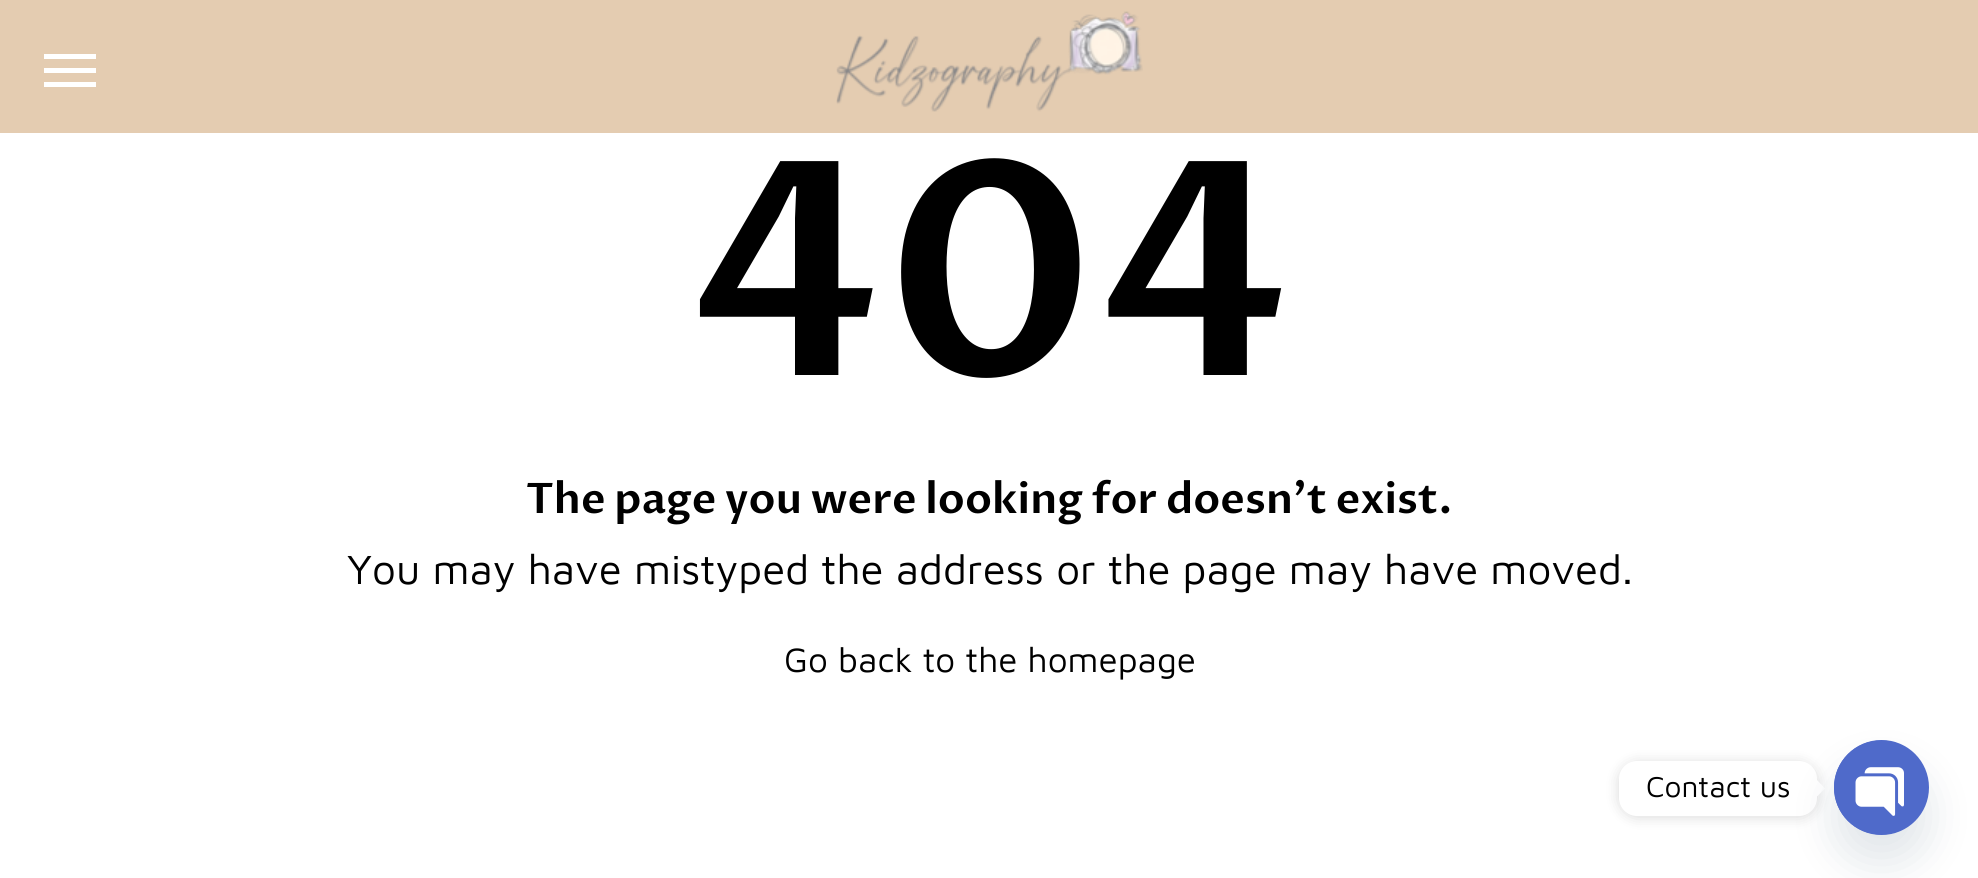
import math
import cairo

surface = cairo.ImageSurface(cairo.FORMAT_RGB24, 1978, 878)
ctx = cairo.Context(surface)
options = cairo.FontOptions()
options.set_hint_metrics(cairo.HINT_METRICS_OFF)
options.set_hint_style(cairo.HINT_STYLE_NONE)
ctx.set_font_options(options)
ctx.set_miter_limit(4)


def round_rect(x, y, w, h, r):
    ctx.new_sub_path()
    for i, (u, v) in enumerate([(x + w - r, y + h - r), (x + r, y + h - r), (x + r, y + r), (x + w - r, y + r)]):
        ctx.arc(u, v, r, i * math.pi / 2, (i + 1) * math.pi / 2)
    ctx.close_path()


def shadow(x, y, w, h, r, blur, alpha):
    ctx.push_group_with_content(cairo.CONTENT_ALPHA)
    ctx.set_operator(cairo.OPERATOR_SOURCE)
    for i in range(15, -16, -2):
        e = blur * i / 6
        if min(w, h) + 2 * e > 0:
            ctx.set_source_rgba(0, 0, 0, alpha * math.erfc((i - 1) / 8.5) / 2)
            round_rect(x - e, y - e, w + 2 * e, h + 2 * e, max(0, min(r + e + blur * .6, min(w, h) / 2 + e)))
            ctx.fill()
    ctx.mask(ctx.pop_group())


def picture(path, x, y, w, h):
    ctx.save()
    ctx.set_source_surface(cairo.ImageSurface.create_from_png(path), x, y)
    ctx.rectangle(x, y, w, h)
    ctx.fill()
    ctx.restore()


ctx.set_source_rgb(1, 1, 1)
ctx.paint()
ctx.set_source_rgb(0.894, 0.8, 0.694)
ctx.rectangle(0, 0, 1978, 133)
ctx.fill()
ctx.set_source_rgb(1, 1, 1)
ctx.rectangle(44, 68, 52, 5)
ctx.fill()
ctx.rectangle(44, 54, 52, 5)
ctx.fill()
ctx.rectangle(44, 82, 52, 5)
ctx.fill()
picture("img1.png", 836, 11, 307, 101)
ctx.select_font_face("Proza Libre SemiBold")
ctx.set_font_size(299)
ctx.set_source_rgb(0, 0, 0)
ctx.move_to(689, 375)
ctx.show_text("404")
ctx.set_font_size(42)
ctx.move_to(526, 513)
ctx.show_text("The page you were looking for doesn’t exist.")
ctx.select_font_face("Maven Pro")
ctx.move_to(347, 584)
ctx.show_text("You may have mistyped the address or the page may have moved.")
ctx.set_font_size(35)
ctx.move_to(784, 672)
ctx.show_text("Go back to the homepage")
ctx.set_source_rgb(0, 0, 0)
shadow(1619, 763, 198, 54, 18, 7, 0.15)
ctx.set_source_rgb(1, 1, 1)
round_rect(1619, 761, 198, 55, 18)
ctx.fill()
ctx.set_font_size(29.75)
ctx.set_source_rgb(0, 0, 0)
ctx.move_to(1646, 797)
ctx.show_text("Contact us")
ctx.set_source_rgb(1, 1, 1)
ctx.new_path()
ctx.move_to(1816.5, 797)
ctx.line_to(1816.5, 779.5)
ctx.line_to(1825, 788.5)
ctx.close_path()
ctx.fill()
ctx.set_source_rgb(0.286, 0.408, 0.494)
shadow(1834, 768, 95, 95, 47.5, 21, 0.16)
ctx.set_source_rgb(0.31, 0.416, 0.792)
ctx.arc(1881.5, 787.5, 47.5, 0, 2 * math.pi)
ctx.fill()
picture("img2.png", 1834, 740, 70, 95)
surface.write_to_png("page.png")
